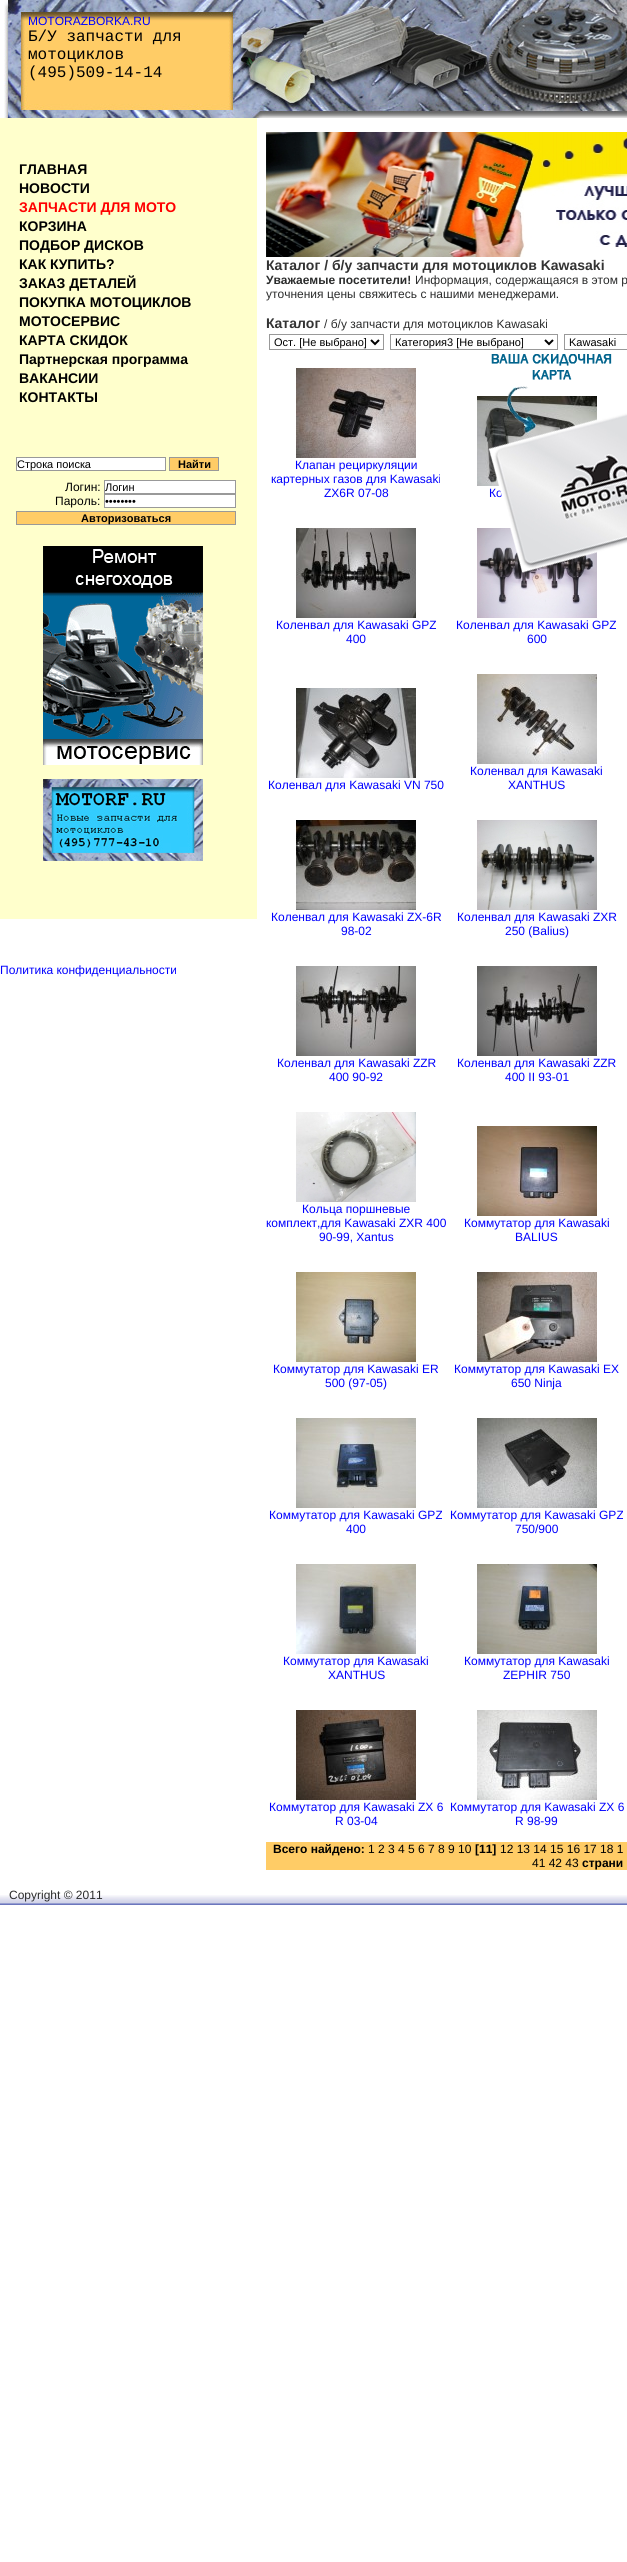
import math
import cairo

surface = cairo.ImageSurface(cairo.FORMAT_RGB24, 627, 2562)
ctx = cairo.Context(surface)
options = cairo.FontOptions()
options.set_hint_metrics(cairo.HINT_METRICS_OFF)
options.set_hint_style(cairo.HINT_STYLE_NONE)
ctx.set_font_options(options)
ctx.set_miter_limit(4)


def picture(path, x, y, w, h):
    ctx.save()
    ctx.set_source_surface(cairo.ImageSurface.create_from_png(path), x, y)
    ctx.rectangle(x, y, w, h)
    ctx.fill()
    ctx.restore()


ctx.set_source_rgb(1, 1, 1)
ctx.paint()
picture("img1.png", 4, 0, 623, 118)
ctx.select_font_face("Liberation Sans")
ctx.set_font_size(12)
ctx.set_source_rgb(0, 0, 1)
ctx.move_to(28, 25)
ctx.show_text("MOTORAZBORKA.RU")
ctx.select_font_face("Liberation Mono")
ctx.set_font_size(16)
ctx.set_source_rgb(0, 0, 0)
ctx.move_to(28, 41)
ctx.show_text("Б/У запчасти для")
ctx.move_to(28, 59)
ctx.show_text("мотоциклов")
ctx.move_to(28, 77)
ctx.show_text("(495)509-14-14")
ctx.set_source_rgb(1, 1, 0.8)
ctx.rectangle(0, 118, 257, 15)
ctx.fill()
ctx.rectangle(0, 133, 257, 786)
ctx.fill()
ctx.select_font_face("Liberation Sans", cairo.FONT_SLANT_NORMAL, cairo.FONT_WEIGHT_BOLD)
ctx.set_font_size(14)
ctx.set_source_rgb(0, 0, 0)
ctx.move_to(19, 174)
ctx.show_text("ГЛАВНАЯ")
ctx.move_to(19, 193)
ctx.show_text("НОВОСТИ")
ctx.set_source_rgb(1, 0, 0)
ctx.move_to(19, 212)
ctx.show_text("ЗАПЧАСТИ ДЛЯ МОТО")
ctx.set_source_rgb(0, 0, 0)
ctx.move_to(19, 231)
ctx.show_text("КОРЗИНА")
ctx.move_to(19, 250)
ctx.show_text("ПОДБОР ДИСКОВ")
ctx.move_to(19, 269)
ctx.show_text("КАК КУПИТЬ?")
ctx.move_to(19, 288)
ctx.show_text("ЗАКАЗ ДЕТАЛЕЙ")
ctx.move_to(19, 307)
ctx.show_text("ПОКУПКА МОТОЦИКЛОВ")
ctx.move_to(19, 326)
ctx.show_text("МОТОСЕРВИС")
ctx.move_to(19, 345)
ctx.show_text("КАРТА СКИДОК")
ctx.move_to(19, 364)
ctx.show_text("Партнерская программа")
ctx.move_to(19, 383)
ctx.show_text("ВАКАНСИИ")
ctx.move_to(19, 402)
ctx.show_text("КОНТАКТЫ")
ctx.set_source_rgb(1, 1, 1)
ctx.rectangle(16.5, 457.5, 149, 13)
ctx.fill_preserve()
ctx.set_source_rgb(0.6, 0.6, 0.6)
ctx.set_line_width(1)
ctx.stroke()
ctx.select_font_face("Liberation Sans")
ctx.set_font_size(11)
ctx.set_source_rgb(0, 0, 0)
ctx.move_to(17, 468)
ctx.show_text("Строка поиска")
ctx.set_source_rgb(1, 0.8, 0.4)
ctx.rectangle(169.5, 457.5, 49, 13)
ctx.fill_preserve()
ctx.set_source_rgb(0.6, 0.6, 0.6)
ctx.stroke()
ctx.select_font_face("Liberation Sans", cairo.FONT_SLANT_NORMAL, cairo.FONT_WEIGHT_BOLD)
ctx.set_source_rgb(0, 0, 0)
ctx.move_to(178, 468)
ctx.show_text("Найти")
ctx.select_font_face("Liberation Sans")
ctx.set_font_size(12)
ctx.move_to(65, 491)
ctx.show_text("Логин:")
ctx.set_source_rgb(1, 1, 1)
ctx.rectangle(104.5, 480.5, 131, 13)
ctx.fill_preserve()
ctx.set_source_rgb(0.6, 0.6, 0.6)
ctx.stroke()
ctx.set_font_size(11)
ctx.set_source_rgb(0, 0, 0)
ctx.move_to(105, 491)
ctx.show_text("Логин")
ctx.set_font_size(12)
ctx.move_to(55, 505)
ctx.show_text("Пароль:")
ctx.set_source_rgb(1, 1, 1)
ctx.rectangle(104.5, 494.5, 131, 13)
ctx.fill_preserve()
ctx.set_source_rgb(0.6, 0.6, 0.6)
ctx.stroke()
ctx.set_font_size(11)
ctx.set_source_rgb(0, 0, 0)
ctx.move_to(105, 505)
ctx.show_text("••••••••")
ctx.set_source_rgb(1, 0.8, 0.4)
ctx.rectangle(16.5, 511.5, 219, 13)
ctx.fill_preserve()
ctx.set_source_rgb(0.6, 0.6, 0.6)
ctx.stroke()
ctx.select_font_face("Liberation Sans", cairo.FONT_SLANT_NORMAL, cairo.FONT_WEIGHT_BOLD)
ctx.set_source_rgb(0, 0, 0)
ctx.move_to(81, 522)
ctx.show_text("Авторизоваться")
picture("img2.png", 43, 546, 160, 219)
picture("img3.png", 43, 779, 160, 82)
ctx.select_font_face("Liberation Sans")
ctx.set_font_size(12)
ctx.set_source_rgb(0, 0, 1)
ctx.move_to(0, 974)
ctx.show_text("Политика конфиденциальности")
picture("img4.png", 266, 132, 361, 125)
ctx.select_font_face("Liberation Sans", cairo.FONT_SLANT_NORMAL, cairo.FONT_WEIGHT_BOLD)
ctx.set_font_size(14)
ctx.set_source_rgb(0.2, 0.2, 0.2)
ctx.move_to(266, 270)
ctx.show_text("Каталог / б/у запчасти для мотоциклов Kawasaki")
ctx.set_font_size(12)
ctx.set_source_rgb(0.169, 0.173, 0.173)
ctx.move_to(266, 284)
ctx.show_text("Уважаемые посетители!")
ctx.select_font_face("Liberation Sans")
ctx.move_to(415, 284)
ctx.show_text("Информация, содержащаяся в этом р")
ctx.move_to(266, 298)
ctx.show_text("уточнения цены свяжитесь с нашими менеджерами.")
ctx.select_font_face("Liberation Sans", cairo.FONT_SLANT_NORMAL, cairo.FONT_WEIGHT_BOLD)
ctx.set_font_size(14)
ctx.set_source_rgb(0.2, 0.2, 0.2)
ctx.move_to(266, 328)
ctx.show_text("Каталог")
ctx.select_font_face("Liberation Sans")
ctx.set_font_size(12)
ctx.set_source_rgb(0.169, 0.173, 0.173)
ctx.move_to(324, 328)
ctx.show_text("/ б/у запчасти для мотоциклов Kawasaki")
ctx.rectangle(269.5, 334.5, 114, 15)
ctx.set_source_rgb(0.6, 0.6, 0.6)
ctx.stroke()
ctx.new_path()
ctx.move_to(371, 340)
ctx.line_to(375, 344)
ctx.line_to(379, 340)
ctx.set_source_rgb(0, 0, 0)
ctx.set_line_width(2)
ctx.stroke()
ctx.set_font_size(11)
ctx.move_to(274, 346)
ctx.show_text("Ост. [Не выбрано]")
ctx.rectangle(390.5, 334.5, 167, 15)
ctx.set_source_rgb(0.6, 0.6, 0.6)
ctx.set_line_width(1)
ctx.stroke()
ctx.new_path()
ctx.move_to(545, 340)
ctx.line_to(549, 344)
ctx.line_to(553, 340)
ctx.set_source_rgb(0, 0, 0)
ctx.set_line_width(2)
ctx.stroke()
ctx.move_to(395, 346)
ctx.show_text("Категория3 [Не выбрано]")
ctx.rectangle(564.5, 334.5, 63, 15)
ctx.set_source_rgb(0.6, 0.6, 0.6)
ctx.set_line_width(1)
ctx.stroke()
ctx.set_source_rgb(0, 0, 0)
ctx.move_to(569, 346)
ctx.show_text("Kawasaki")
picture("img5.png", 296, 368, 120, 90)
ctx.set_font_size(12)
ctx.set_source_rgb(0, 0, 1)
ctx.move_to(295, 469)
ctx.show_text("Клапан рециркуляции")
ctx.move_to(271, 483)
ctx.show_text("картерных газов для Kawasaki")
ctx.move_to(324, 497)
ctx.show_text("ZX6R 07-08")
picture("img6.png", 477, 396, 120, 90)
ctx.move_to(489, 497)
ctx.show_text("Ко")
picture("img7.png", 296, 528, 120, 90)
ctx.move_to(276, 629)
ctx.show_text("Коленвал для Kawasaki GPZ")
ctx.move_to(346, 643)
ctx.show_text("400")
picture("img8.png", 477, 528, 120, 90)
ctx.move_to(456, 629)
ctx.show_text("Коленвал для Kawasaki GPZ")
ctx.move_to(527, 643)
ctx.show_text("600")
picture("img9.png", 296, 688, 120, 90)
ctx.move_to(268, 789)
ctx.show_text("Коленвал для Kawasaki VN 750")
picture("img10.png", 477, 674, 120, 90)
ctx.move_to(470, 775)
ctx.show_text("Коленвал для Kawasaki")
ctx.move_to(508, 789)
ctx.show_text("XANTHUS")
picture("img11.png", 296, 820, 120, 90)
ctx.move_to(271, 921)
ctx.show_text("Коленвал для Kawasaki ZX-6R")
ctx.move_to(341, 935)
ctx.show_text("98-02")
picture("img12.png", 477, 820, 120, 90)
ctx.move_to(457, 921)
ctx.show_text("Коленвал для Kawasaki ZXR")
ctx.move_to(505, 935)
ctx.show_text("250 (Balius)")
picture("img13.png", 296, 966, 120, 90)
ctx.move_to(277, 1067)
ctx.show_text("Коленвал для Kawasaki ZZR")
ctx.move_to(329, 1081)
ctx.show_text("400 90-92")
picture("img14.png", 477, 966, 120, 90)
ctx.move_to(457, 1067)
ctx.show_text("Коленвал для Kawasaki ZZR")
ctx.move_to(505, 1081)
ctx.show_text("400 II 93-01")
picture("img15.png", 296, 1112, 120, 90)
ctx.move_to(302, 1213)
ctx.show_text("Кольца поршневые")
ctx.move_to(266, 1227)
ctx.show_text("комплект,для Kawasaki ZXR 400")
ctx.move_to(319, 1241)
ctx.show_text("90-99, Xantus")
picture("img16.png", 477, 1126, 120, 90)
ctx.move_to(464, 1227)
ctx.show_text("Коммутатор для Kawasaki")
ctx.move_to(515, 1241)
ctx.show_text("BALIUS")
picture("img17.png", 296, 1272, 120, 90)
ctx.move_to(273, 1373)
ctx.show_text("Коммутатор для Kawasaki ER")
ctx.move_to(325, 1387)
ctx.show_text("500 (97-05)")
picture("img18.png", 477, 1272, 120, 90)
ctx.move_to(454, 1373)
ctx.show_text("Коммутатор для Kawasaki EX")
ctx.move_to(511, 1387)
ctx.show_text("650 Ninja")
picture("img19.png", 296, 1418, 120, 90)
ctx.move_to(269, 1519)
ctx.show_text("Коммутатор для Kawasaki GPZ")
ctx.move_to(346, 1533)
ctx.show_text("400")
picture("img20.png", 477, 1418, 120, 90)
ctx.move_to(450, 1519)
ctx.show_text("Коммутатор для Kawasaki GPZ")
ctx.move_to(515, 1533)
ctx.show_text("750/900")
picture("img21.png", 296, 1564, 120, 90)
ctx.move_to(283, 1665)
ctx.show_text("Коммутатор для Kawasaki")
ctx.move_to(328, 1679)
ctx.show_text("XANTHUS")
picture("img22.png", 477, 1564, 120, 90)
ctx.move_to(464, 1665)
ctx.show_text("Коммутатор для Kawasaki")
ctx.move_to(503, 1679)
ctx.show_text("ZEPHIR 750")
picture("img23.png", 296, 1710, 120, 90)
ctx.move_to(269, 1811)
ctx.show_text("Коммутатор для Kawasaki ZX 6")
ctx.move_to(335, 1825)
ctx.show_text("R 03-04")
picture("img24.png", 477, 1710, 120, 90)
ctx.move_to(450, 1811)
ctx.show_text("Коммутатор для Kawasaki ZX 6")
ctx.move_to(515, 1825)
ctx.show_text("R 98-99")
ctx.set_source_rgb(1, 0.8, 0.4)
ctx.rectangle(266, 1842, 361, 28)
ctx.fill()
ctx.select_font_face("Liberation Sans", cairo.FONT_SLANT_NORMAL, cairo.FONT_WEIGHT_BOLD)
ctx.set_source_rgb(0, 0, 0)
ctx.move_to(273, 1853)
ctx.show_text("Всего найдено:")
ctx.select_font_face("Liberation Sans")
ctx.move_to(368, 1853)
ctx.show_text("1 2 3 4 5 6 7 8 9 10")
ctx.select_font_face("Liberation Sans", cairo.FONT_SLANT_NORMAL, cairo.FONT_WEIGHT_BOLD)
ctx.move_to(475, 1853)
ctx.show_text("[11]")
ctx.select_font_face("Liberation Sans")
ctx.move_to(500, 1853)
ctx.show_text("12 13 14 15 16 17 18 1")
ctx.move_to(532, 1867)
ctx.show_text("41 42 43")
ctx.select_font_face("Liberation Sans", cairo.FONT_SLANT_NORMAL, cairo.FONT_WEIGHT_BOLD)
ctx.move_to(582, 1867)
ctx.show_text("страни")
picture("img25.png", 488, 354, 139, 220)
picture("img26.png", 0, 1895, 627, 10)
ctx.select_font_face("Liberation Sans")
ctx.set_source_rgb(0.169, 0.173, 0.173)
ctx.move_to(9, 1899)
ctx.show_text("Сopyright © 2011")
surface.write_to_png("page.png")
